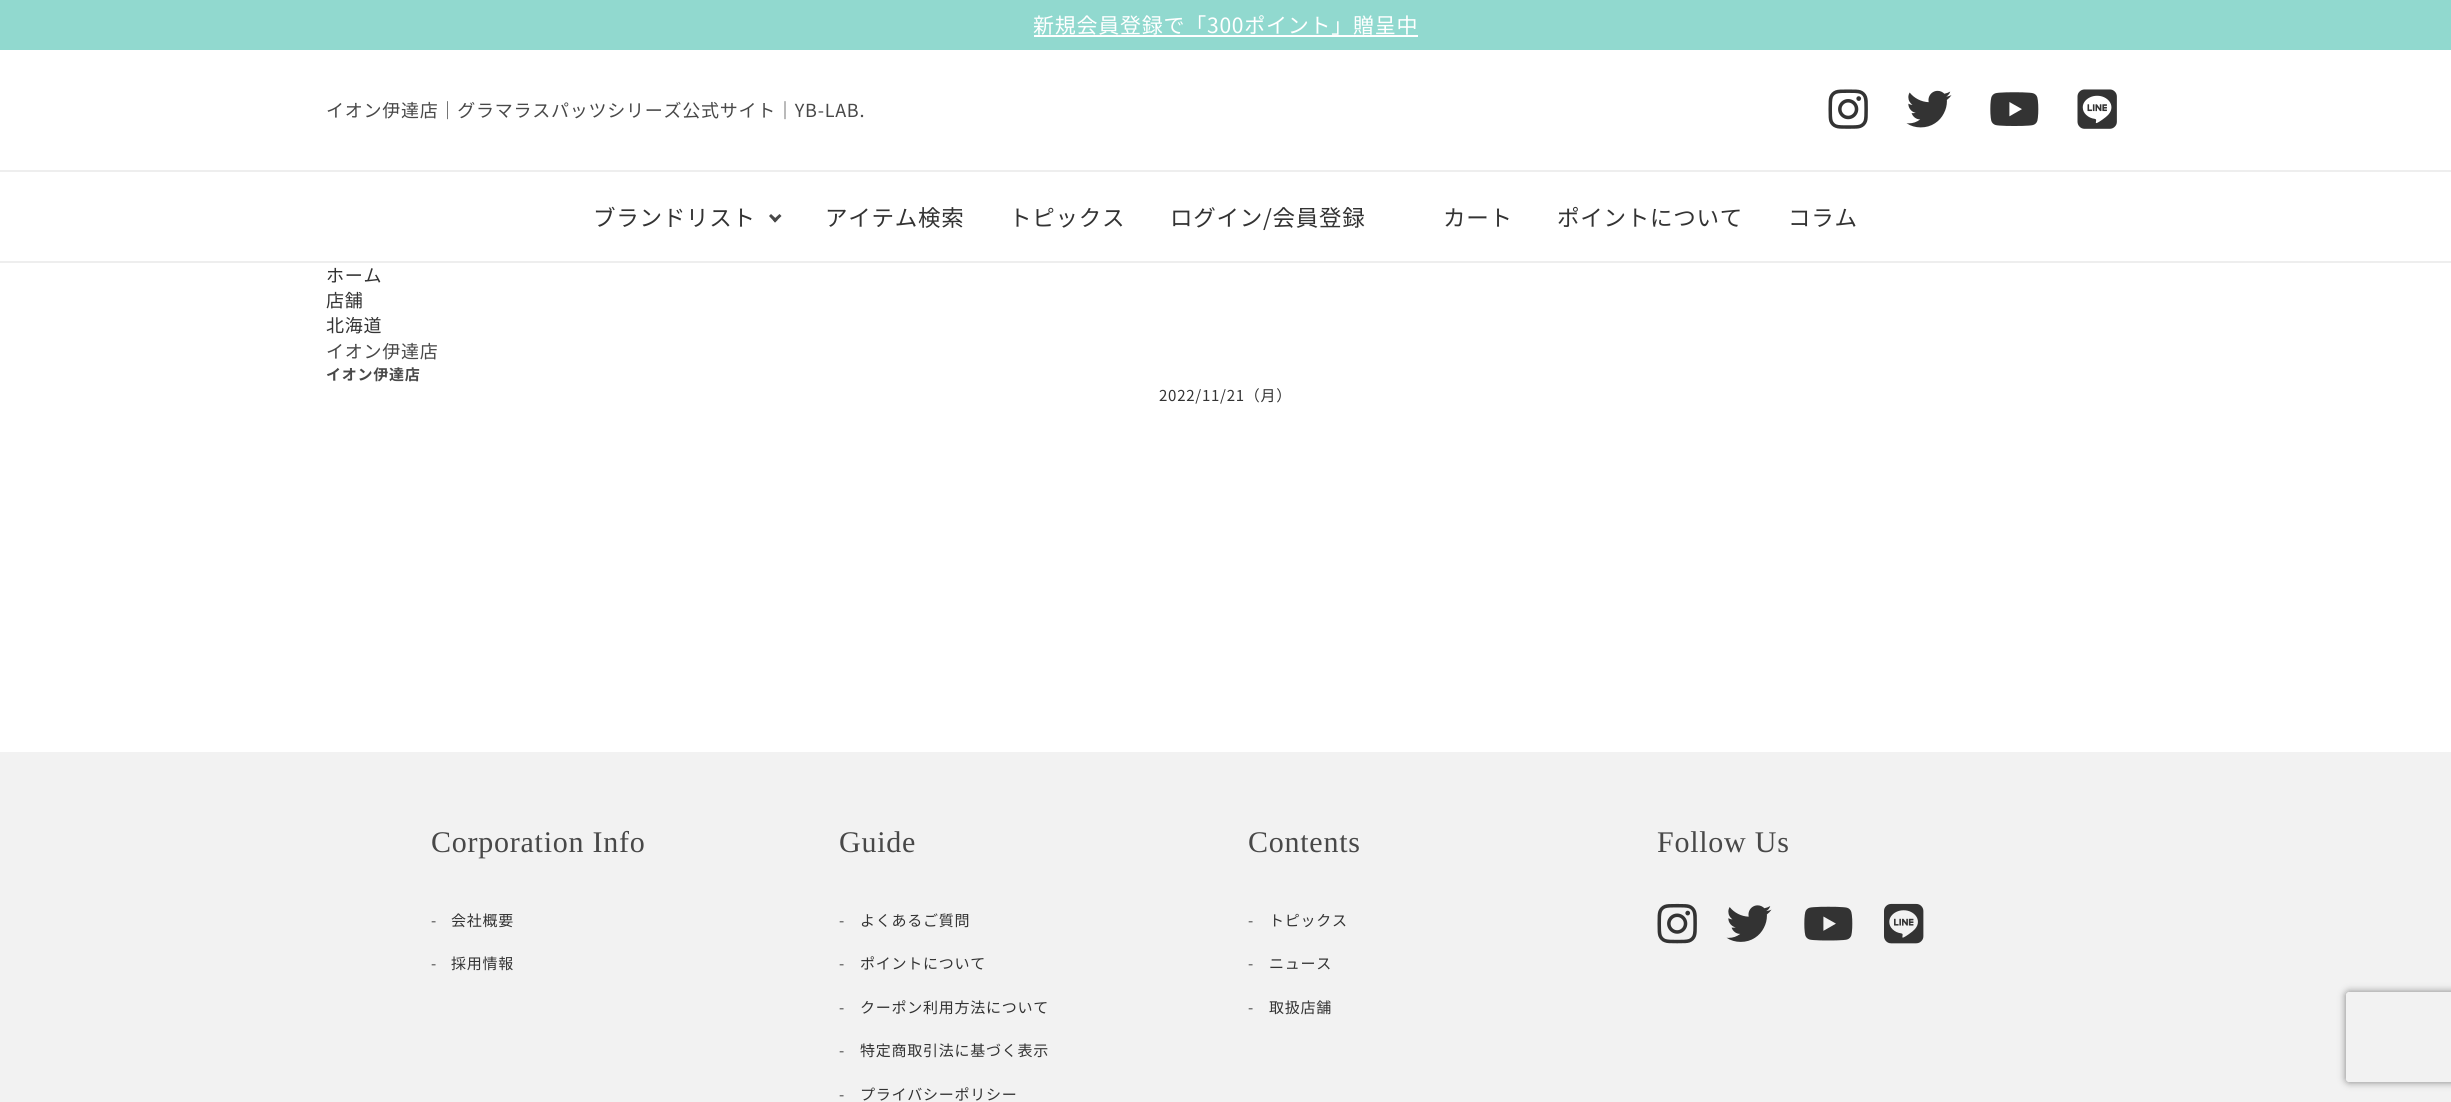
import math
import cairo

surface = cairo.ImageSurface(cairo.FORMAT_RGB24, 2451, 1102)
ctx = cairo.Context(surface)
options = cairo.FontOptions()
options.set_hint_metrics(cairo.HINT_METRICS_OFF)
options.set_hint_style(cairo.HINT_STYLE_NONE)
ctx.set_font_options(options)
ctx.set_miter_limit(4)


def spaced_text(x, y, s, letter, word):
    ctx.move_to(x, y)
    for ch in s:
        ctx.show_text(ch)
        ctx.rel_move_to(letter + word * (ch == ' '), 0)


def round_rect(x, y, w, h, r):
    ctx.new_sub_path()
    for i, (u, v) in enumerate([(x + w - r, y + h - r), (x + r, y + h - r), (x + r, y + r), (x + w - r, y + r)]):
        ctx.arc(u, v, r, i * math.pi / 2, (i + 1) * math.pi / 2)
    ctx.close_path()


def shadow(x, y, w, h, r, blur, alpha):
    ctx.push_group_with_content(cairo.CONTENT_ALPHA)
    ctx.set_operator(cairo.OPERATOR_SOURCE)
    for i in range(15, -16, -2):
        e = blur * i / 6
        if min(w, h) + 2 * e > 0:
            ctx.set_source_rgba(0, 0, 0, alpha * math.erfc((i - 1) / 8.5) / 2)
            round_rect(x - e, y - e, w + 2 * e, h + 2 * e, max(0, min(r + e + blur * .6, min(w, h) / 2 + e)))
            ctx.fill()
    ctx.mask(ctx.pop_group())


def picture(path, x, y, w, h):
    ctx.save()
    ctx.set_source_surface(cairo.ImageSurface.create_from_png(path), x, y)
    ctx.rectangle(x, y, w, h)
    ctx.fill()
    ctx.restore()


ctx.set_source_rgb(1, 1, 1)
ctx.paint()
ctx.set_source_rgb(0.569, 0.851, 0.812)
ctx.rectangle(0, 0, 2451, 50)
ctx.fill()
ctx.select_font_face("Noto Sans JP")
ctx.set_font_size(21)
ctx.set_source_rgb(1, 1, 1)
spaced_text(1033, 33, "新規会員登録で「300ポイント」贈呈中", 0.75, 0)
ctx.rectangle(1034, 35, 384, 2)
ctx.fill()
ctx.set_font_size(18)
ctx.set_source_rgb(0.282, 0.282, 0.282)
spaced_text(326, 117, "イオン伊達店｜グラマラスパッツシリーズ公式サイト｜YB-LAB.", 0.75, 0)
picture("img1.png", 1828, 89, 40, 40)
picture("img2.png", 1906, 90, 46, 38)
picture("img3.png", 1990, 92, 49, 34)
picture("img4.png", 2077, 89, 40, 40)
ctx.set_source_rgb(0.933, 0.933, 0.933)
ctx.rectangle(0, 170, 2451, 2)
ctx.fill()
ctx.rectangle(0, 261, 2451, 2)
ctx.fill()
ctx.set_font_size(22.5)
ctx.set_source_rgb(0.2, 0.2, 0.2)
spaced_text(593, 226, "ブランドリスト", 0.75, 0)
ctx.set_source_rgb(0.282, 0.282, 0.282)
ctx.new_path()
ctx.move_to(781.5, 216)
ctx.line_to(775, 222.5)
ctx.line_to(773, 220)
ctx.line_to(779.5, 214)
ctx.close_path()
ctx.fill()
ctx.new_path()
ctx.move_to(777.5, 220)
ctx.line_to(775, 222.5)
ctx.line_to(769, 216)
ctx.line_to(771, 214)
ctx.close_path()
ctx.fill()
ctx.set_source_rgb(0.2, 0.2, 0.2)
spaced_text(825, 226, "アイテム検索", 0.75, 0)
spaced_text(1009, 226, "トピックス", 0.75, 0)
spaced_text(1170, 226, "ログイン/会員登録", 0.75, 0)
spaced_text(1443, 226, "カート", 0.75, 0)
spaced_text(1557, 226, "ポイントについて", 0.75, 0)
spaced_text(1788, 226, "コラム", 0.75, 0)
ctx.set_font_size(18)
spaced_text(326, 282, "ホーム", 0.75, 0)
spaced_text(326, 307, "店舗", 0.75, 0)
spaced_text(326, 332, "北海道", 0.75, 0)
ctx.set_source_rgb(0.282, 0.282, 0.282)
spaced_text(326, 358, "イオン伊達店", 0.75, 0)
ctx.select_font_face("Noto Sans JP", cairo.FONT_SLANT_NORMAL, cairo.FONT_WEIGHT_BOLD)
ctx.set_font_size(15)
spaced_text(326, 380, "イオン伊達店", 0.75, 0)
ctx.select_font_face("Noto Sans JP")
ctx.set_source_rgb(0.2, 0.2, 0.2)
spaced_text(1159, 401, "2022/11/21（月）", 0.75, 0)
ctx.set_source_rgb(0.949, 0.949, 0.949)
ctx.rectangle(0, 752, 2451, 350)
ctx.fill()
ctx.select_font_face("Liberation Serif")
ctx.set_font_size(30)
ctx.set_source_rgb(0.282, 0.282, 0.282)
spaced_text(431, 852, "Corporation Info", 0.75, 0)
ctx.select_font_face("Noto Sans JP")
ctx.set_font_size(15)
spaced_text(431, 926, "-", 0.75, 0)
ctx.set_source_rgb(0.2, 0.2, 0.2)
spaced_text(451, 926, "会社概要", 0.75, 0)
ctx.set_source_rgb(0.282, 0.282, 0.282)
spaced_text(431, 969, "-", 0.75, 0)
ctx.set_source_rgb(0.2, 0.2, 0.2)
spaced_text(451, 969, "採用情報", 0.75, 0)
ctx.select_font_face("Liberation Serif")
ctx.set_font_size(30)
ctx.set_source_rgb(0.282, 0.282, 0.282)
spaced_text(839, 852, "Guide", 0.75, 0)
ctx.select_font_face("Noto Sans JP")
ctx.set_font_size(15)
spaced_text(839, 926, "-", 0.75, 0)
ctx.set_source_rgb(0.2, 0.2, 0.2)
spaced_text(860, 926, "よくあるご質問", 0.75, 0)
ctx.set_source_rgb(0.282, 0.282, 0.282)
spaced_text(839, 969, "-", 0.75, 0)
ctx.set_source_rgb(0.2, 0.2, 0.2)
spaced_text(860, 969, "ポイントについて", 0.75, 0)
ctx.set_source_rgb(0.282, 0.282, 0.282)
spaced_text(839, 1013, "-", 0.75, 0)
ctx.set_source_rgb(0.2, 0.2, 0.2)
spaced_text(860, 1013, "クーポン利用方法について", 0.75, 0)
ctx.set_source_rgb(0.282, 0.282, 0.282)
spaced_text(839, 1056, "-", 0.75, 0)
ctx.set_source_rgb(0.2, 0.2, 0.2)
spaced_text(860, 1056, "特定商取引法に基づく表示", 0.75, 0)
ctx.set_source_rgb(0.282, 0.282, 0.282)
spaced_text(839, 1100, "-", 0.75, 0)
ctx.set_source_rgb(0.2, 0.2, 0.2)
spaced_text(860, 1100, "プライバシーポリシー", 0.75, 0)
ctx.select_font_face("Liberation Serif")
ctx.set_font_size(30)
ctx.set_source_rgb(0.282, 0.282, 0.282)
spaced_text(1248, 852, "Contents", 0.75, 0)
ctx.select_font_face("Noto Sans JP")
ctx.set_font_size(15)
spaced_text(1248, 926, "-", 0.75, 0)
ctx.set_source_rgb(0.2, 0.2, 0.2)
spaced_text(1269, 926, "トピックス", 0.75, 0)
ctx.set_source_rgb(0.282, 0.282, 0.282)
spaced_text(1248, 969, "-", 0.75, 0)
ctx.set_source_rgb(0.2, 0.2, 0.2)
spaced_text(1269, 969, "ニュース", 0.75, 0)
ctx.set_source_rgb(0.282, 0.282, 0.282)
spaced_text(1248, 1013, "-", 0.75, 0)
ctx.set_source_rgb(0.2, 0.2, 0.2)
spaced_text(1269, 1013, "取扱店舗", 0.75, 0)
ctx.select_font_face("Liberation Serif")
ctx.set_font_size(30)
ctx.set_source_rgb(0.282, 0.282, 0.282)
spaced_text(1657, 852, "Follow Us", 0.75, 0)
picture("img5.png", 1657, 903, 40, 41)
picture("img6.png", 1726, 905, 46, 37)
picture("img7.png", 1804, 906, 49, 35)
picture("img8.png", 1884, 903, 40, 41)
ctx.save()
ctx.set_fill_rule(cairo.FILL_RULE_EVEN_ODD)
ctx.new_path()
ctx.move_to(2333, 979)
ctx.line_to(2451, 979)
ctx.line_to(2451, 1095)
ctx.line_to(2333, 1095)
ctx.close_path()
ctx.move_to(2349, 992)
ctx.line_to(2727, 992)
ctx.curve_to(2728.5, 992, 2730, 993.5, 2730, 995)
ctx.line_to(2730, 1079)
ctx.curve_to(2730, 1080.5, 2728.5, 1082, 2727, 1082)
ctx.line_to(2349, 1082)
ctx.curve_to(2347.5, 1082, 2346, 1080.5, 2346, 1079)
ctx.line_to(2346, 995)
ctx.curve_to(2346, 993.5, 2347.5, 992, 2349, 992)
ctx.close_path()
ctx.clip()
ctx.set_source_rgb(0.502, 0.502, 0.502)
shadow(2346, 992, 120, 90, 3, 4, 1)
ctx.restore()
surface.write_to_png("page.png")
